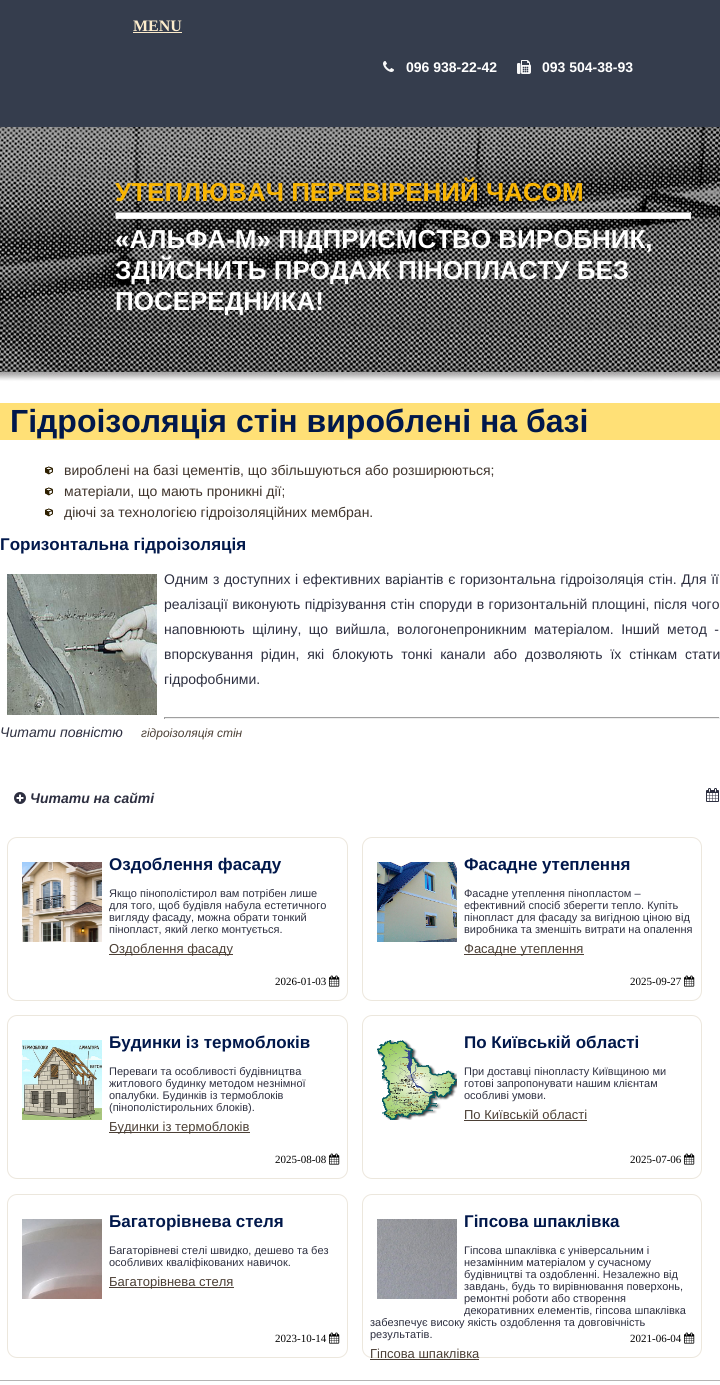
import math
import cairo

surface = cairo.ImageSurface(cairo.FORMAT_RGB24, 720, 1385)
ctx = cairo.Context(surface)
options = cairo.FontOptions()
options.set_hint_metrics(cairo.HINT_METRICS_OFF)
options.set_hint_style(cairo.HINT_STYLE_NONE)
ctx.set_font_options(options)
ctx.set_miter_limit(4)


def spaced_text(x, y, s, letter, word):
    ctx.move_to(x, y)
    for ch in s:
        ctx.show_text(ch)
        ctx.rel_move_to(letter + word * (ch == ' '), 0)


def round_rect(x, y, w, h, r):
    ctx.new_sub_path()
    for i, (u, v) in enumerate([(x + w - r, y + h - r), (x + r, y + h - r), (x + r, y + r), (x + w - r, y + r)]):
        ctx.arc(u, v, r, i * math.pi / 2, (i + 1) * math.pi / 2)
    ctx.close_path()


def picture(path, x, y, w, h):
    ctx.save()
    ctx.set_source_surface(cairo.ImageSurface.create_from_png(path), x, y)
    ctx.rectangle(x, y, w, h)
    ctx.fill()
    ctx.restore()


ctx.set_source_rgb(1, 1, 1)
ctx.paint()
ctx.set_source_rgb(0.208, 0.239, 0.302)
ctx.rectangle(0, 0, 720, 127)
ctx.fill()
ctx.select_font_face("Liberation Serif", cairo.FONT_SLANT_NORMAL, cairo.FONT_WEIGHT_BOLD)
ctx.set_font_size(16)
ctx.set_source_rgb(0.992, 0.925, 0.796)
ctx.move_to(133, 31)
ctx.show_text("MENU")
ctx.rectangle(133, 32, 49, 1)
ctx.fill()
picture("img1.png", 383, 61, 11, 11)
ctx.select_font_face("Liberation Sans", cairo.FONT_SLANT_NORMAL, cairo.FONT_WEIGHT_BOLD)
ctx.set_font_size(14)
ctx.set_source_rgb(1, 1, 1)
ctx.move_to(406, 72)
ctx.show_text("096 938-22-42")
picture("img2.png", 517, 60, 14, 14)
ctx.move_to(542, 72)
ctx.show_text("093 504-38-93")
picture("img3.png", 0, 127, 720, 255)
ctx.set_font_size(26)
ctx.set_source_rgb(0.973, 0.71, 0.008)
ctx.move_to(115, 201)
ctx.show_text("УТЕПЛЮВАЧ ПЕРЕВІРЕНИЙ ЧАСОМ")
ctx.set_source_rgb(1, 1, 1)
ctx.rectangle(115, 213, 576, 5)
ctx.fill()
ctx.set_source_rgb(0.624, 0.624, 0.624)
ctx.rectangle(115, 212, 576, 1)
ctx.fill()
ctx.set_source_rgb(0.933, 0.933, 0.933)
ctx.rectangle(690, 212, 1, 7)
ctx.fill()
ctx.rectangle(115, 218, 576, 1)
ctx.fill()
ctx.set_source_rgb(0.624, 0.624, 0.624)
ctx.rectangle(115, 212, 1, 7)
ctx.fill()
ctx.set_source_rgb(1, 1, 1)
ctx.move_to(115, 248)
ctx.show_text("«АЛЬФА-М» ПІДПРИЄМСТВО ВИРОБНИК,")
ctx.move_to(115, 279)
ctx.show_text("ЗДІЙСНИТЬ ПРОДАЖ ПІНОПЛАСТУ БЕЗ")
ctx.move_to(115, 310)
ctx.show_text("ПОСЕРЕДНИКА!")
ctx.set_source_rgb(1, 0.878, 0.463)
ctx.rectangle(0, 403, 720, 37)
ctx.fill()
ctx.set_font_size(32)
ctx.set_source_rgb(0.004, 0.094, 0.294)
ctx.move_to(10, 432)
ctx.show_text("Гідроізоляція стін вироблені на базі")
picture("img4.png", 45, 466, 8, 9)
ctx.select_font_face("Liberation Sans")
ctx.set_font_size(14)
ctx.set_source_rgb(0.251, 0.208, 0.176)
ctx.move_to(64, 475)
ctx.show_text("вироблені на базі цементів, що збільшуються або розширюються;")
picture("img4.png", 45, 487, 8, 9)
ctx.move_to(64, 496)
ctx.show_text("матеріали, що мають проникні дії;")
picture("img4.png", 45, 508, 8, 9)
ctx.move_to(64, 517)
ctx.show_text("діючі за технологією гідроізоляційних мембран.")
ctx.select_font_face("Liberation Sans", cairo.FONT_SLANT_NORMAL, cairo.FONT_WEIGHT_BOLD)
ctx.set_font_size(17)
ctx.set_source_rgb(0.004, 0.094, 0.294)
ctx.move_to(0, 550)
ctx.show_text("Горизонтальна гідроізоляція")
picture("img5.png", 7, 574, 150, 141)
ctx.select_font_face("Liberation Sans")
ctx.set_font_size(14)
ctx.set_source_rgb(0.176, 0.184, 0.251)
spaced_text(164, 584, "Одним з доступних і ефективних варіантів є горизонтальна гідроізоляція стін. Для її", 0, 0.75)
spaced_text(164, 609, "реалізації виконують підрізування стін споруди в горизонтальній площині, після чого", 0, 0.5)
spaced_text(164, 634, "наповнюють щілину, що вийшла, вологонепроникним матеріалом. Інший метод -", 0, 3.5)
spaced_text(164, 659, "впорскування рідин, які блокують тонкі канали або дозволяють їх стінкам стати", 0, 4)
ctx.move_to(164, 684)
ctx.show_text("гідрофобними.")
ctx.set_source_rgb(0.624, 0.624, 0.624)
ctx.rectangle(164, 717, 556, 1)
ctx.fill()
ctx.set_source_rgb(0.933, 0.933, 0.933)
ctx.rectangle(719, 717, 1, 2)
ctx.fill()
ctx.rectangle(164, 718, 556, 1)
ctx.fill()
ctx.set_source_rgb(0.624, 0.624, 0.624)
ctx.rectangle(164, 717, 1, 2)
ctx.fill()
ctx.select_font_face("Liberation Sans", cairo.FONT_SLANT_ITALIC)
ctx.set_source_rgb(0.176, 0.184, 0.251)
ctx.move_to(0, 737)
ctx.show_text("Читати повністю")
ctx.set_font_size(12)
ctx.set_source_rgb(0.294, 0.247, 0.208)
ctx.move_to(141, 737)
ctx.show_text("гідроізоляція стін")
picture("img6.png", 14, 792, 12, 12)
ctx.select_font_face("Liberation Sans", cairo.FONT_SLANT_ITALIC, cairo.FONT_WEIGHT_BOLD)
ctx.set_font_size(14)
ctx.set_source_rgb(0.176, 0.184, 0.251)
ctx.move_to(30, 803)
ctx.show_text("Читати на сайті")
picture("img7.png", 706, 788, 13, 14)
round_rect(7.5, 837.5, 340, 163, 9.5)
ctx.set_source_rgb(0.925, 0.906, 0.867)
ctx.set_line_width(1)
ctx.stroke()
picture("img8.png", 22, 862, 80, 80)
ctx.select_font_face("Liberation Sans", cairo.FONT_SLANT_NORMAL, cairo.FONT_WEIGHT_BOLD)
ctx.set_font_size(17)
ctx.set_source_rgb(0.004, 0.094, 0.294)
ctx.move_to(109, 870)
ctx.show_text("Оздоблення фасаду")
ctx.select_font_face("Liberation Sans")
ctx.set_font_size(11)
ctx.set_source_rgb(0.176, 0.184, 0.251)
ctx.move_to(109, 897)
ctx.show_text("Якщо пінополістирол вам потрібен лише")
ctx.move_to(109, 909)
ctx.show_text("для того, щоб будівля набула естетичного")
ctx.move_to(109, 921)
ctx.show_text("вигляду фасаду, можна обрати тонкий")
ctx.move_to(109, 933)
ctx.show_text("пінопласт, який легко монтується.")
ctx.set_source_rgb(0.294, 0.247, 0.208)
ctx.rectangle(109, 954, 124, 1)
ctx.fill()
ctx.set_font_size(13)
ctx.move_to(109, 953)
ctx.show_text("Оздоблення фасаду")
ctx.select_font_face("Liberation Serif")
ctx.set_font_size(11)
ctx.set_source_rgb(0, 0, 0)
ctx.move_to(275, 985)
ctx.show_text("2026-01-03")
picture("img9.png", 329, 975, 11, 12)
round_rect(362.5, 837.5, 339, 163, 9.5)
ctx.set_source_rgb(0.925, 0.906, 0.867)
ctx.stroke()
picture("img10.png", 377, 862, 80, 80)
ctx.select_font_face("Liberation Sans", cairo.FONT_SLANT_NORMAL, cairo.FONT_WEIGHT_BOLD)
ctx.set_font_size(17)
ctx.set_source_rgb(0.004, 0.094, 0.294)
ctx.move_to(464, 870)
ctx.show_text("Фасадне утеплення")
ctx.select_font_face("Liberation Sans")
ctx.set_font_size(11)
ctx.set_source_rgb(0.176, 0.184, 0.251)
ctx.move_to(464, 897)
ctx.show_text("Фасадне утеплення пінопластом –")
ctx.move_to(464, 909)
ctx.show_text("ефективний спосіб зберегти тепло. Купіть")
ctx.move_to(464, 921)
ctx.show_text("пінопласт для фасаду за вигідною ціною від")
ctx.move_to(464, 933)
ctx.show_text("виробника та зменшіть витрати на опалення")
ctx.set_source_rgb(0.294, 0.247, 0.208)
ctx.rectangle(464, 954, 120, 1)
ctx.fill()
ctx.set_font_size(13)
ctx.move_to(464, 953)
ctx.show_text("Фасадне утеплення")
ctx.select_font_face("Liberation Serif")
ctx.set_font_size(11)
ctx.set_source_rgb(0, 0, 0)
ctx.move_to(630, 985)
ctx.show_text("2025-09-27")
picture("img9.png", 684, 975, 11, 12)
round_rect(7.5, 1015.5, 340, 163, 9.5)
ctx.set_source_rgb(0.925, 0.906, 0.867)
ctx.stroke()
picture("img11.png", 22, 1040, 80, 80)
ctx.select_font_face("Liberation Sans", cairo.FONT_SLANT_NORMAL, cairo.FONT_WEIGHT_BOLD)
ctx.set_font_size(17)
ctx.set_source_rgb(0.004, 0.094, 0.294)
ctx.move_to(109, 1048)
ctx.show_text("Будинки із термоблоків")
ctx.select_font_face("Liberation Sans")
ctx.set_font_size(11)
ctx.set_source_rgb(0.176, 0.184, 0.251)
ctx.move_to(109, 1075)
ctx.show_text("Переваги та особливості будівництва")
ctx.move_to(109, 1087)
ctx.show_text("житлового будинку методом незнімної")
ctx.move_to(109, 1099)
ctx.show_text("опалубки. Будинків із термоблоків")
ctx.move_to(109, 1111)
ctx.show_text("(пінополістирольних блоків).")
ctx.set_source_rgb(0.294, 0.247, 0.208)
ctx.rectangle(109, 1132, 141, 1)
ctx.fill()
ctx.set_font_size(13)
ctx.move_to(109, 1131)
ctx.show_text("Будинки із термоблоків")
ctx.select_font_face("Liberation Serif")
ctx.set_font_size(11)
ctx.set_source_rgb(0, 0, 0)
ctx.move_to(275, 1163)
ctx.show_text("2025-08-08")
picture("img9.png", 329, 1153, 11, 12)
round_rect(362.5, 1015.5, 339, 163, 9.5)
ctx.set_source_rgb(0.925, 0.906, 0.867)
ctx.stroke()
picture("img12.png", 377, 1040, 80, 80)
ctx.select_font_face("Liberation Sans", cairo.FONT_SLANT_NORMAL, cairo.FONT_WEIGHT_BOLD)
ctx.set_font_size(17)
ctx.set_source_rgb(0.004, 0.094, 0.294)
ctx.move_to(464, 1048)
ctx.show_text("По Київській області")
ctx.select_font_face("Liberation Sans")
ctx.set_font_size(11)
ctx.set_source_rgb(0.176, 0.184, 0.251)
ctx.move_to(464, 1075)
ctx.show_text("При доставці пінопласту Київщиною ми")
ctx.move_to(464, 1087)
ctx.show_text("готові запропонувати нашим клієнтам")
ctx.move_to(464, 1099)
ctx.show_text("особливі умови.")
ctx.set_font_size(13)
ctx.set_source_rgb(0.294, 0.247, 0.208)
ctx.move_to(464, 1119)
ctx.show_text("По Київській області")
ctx.rectangle(464, 1120, 123, 1)
ctx.fill()
ctx.select_font_face("Liberation Serif")
ctx.set_font_size(11)
ctx.set_source_rgb(0, 0, 0)
ctx.move_to(630, 1163)
ctx.show_text("2025-07-06")
picture("img9.png", 684, 1153, 11, 12)
round_rect(7.5, 1194.5, 340, 163, 9.5)
ctx.set_source_rgb(0.925, 0.906, 0.867)
ctx.stroke()
picture("img13.png", 22, 1219, 80, 80)
ctx.select_font_face("Liberation Sans", cairo.FONT_SLANT_NORMAL, cairo.FONT_WEIGHT_BOLD)
ctx.set_font_size(17)
ctx.set_source_rgb(0.004, 0.094, 0.294)
ctx.move_to(109, 1227)
ctx.show_text("Багаторівнева стеля")
ctx.select_font_face("Liberation Sans")
ctx.set_font_size(11)
ctx.set_source_rgb(0.176, 0.184, 0.251)
ctx.move_to(109, 1254)
ctx.show_text("Багаторівневі стелі швидко, дешево та без")
ctx.move_to(109, 1266)
ctx.show_text("особливих кваліфікованих навичок.")
ctx.set_source_rgb(0.294, 0.247, 0.208)
ctx.rectangle(109, 1287, 125, 1)
ctx.fill()
ctx.set_font_size(13)
ctx.move_to(109, 1286)
ctx.show_text("Багаторівнева стеля")
ctx.select_font_face("Liberation Serif")
ctx.set_font_size(11)
ctx.set_source_rgb(0, 0, 0)
ctx.move_to(275, 1342)
ctx.show_text("2023-10-14")
picture("img9.png", 329, 1332, 11, 12)
round_rect(362.5, 1194.5, 339, 163, 9.5)
ctx.set_source_rgb(0.925, 0.906, 0.867)
ctx.stroke()
picture("img14.png", 377, 1219, 80, 80)
ctx.select_font_face("Liberation Sans", cairo.FONT_SLANT_NORMAL, cairo.FONT_WEIGHT_BOLD)
ctx.set_font_size(17)
ctx.set_source_rgb(0.004, 0.094, 0.294)
ctx.move_to(464, 1227)
ctx.show_text("Гіпсова шпаклівка")
ctx.select_font_face("Liberation Sans")
ctx.set_font_size(11)
ctx.set_source_rgb(0.176, 0.184, 0.251)
ctx.move_to(464, 1254)
ctx.show_text("Гіпсова шпаклівка є універсальним і")
ctx.move_to(464, 1266)
ctx.show_text("незамінним матеріалом у сучасному")
ctx.move_to(464, 1278)
ctx.show_text("будівництві та оздобленні. Незалежно від")
ctx.move_to(464, 1290)
ctx.show_text("завдань, будь то вирівнювання поверхонь,")
ctx.move_to(464, 1302)
ctx.show_text("ремонтні роботи або створення")
ctx.move_to(464, 1314)
ctx.show_text("декоративних елементів, гіпсова шпаклівка")
ctx.move_to(370, 1326)
ctx.show_text("забезпечує високу якість оздоблення та довговічність")
ctx.move_to(370, 1338)
ctx.show_text("результатів.")
ctx.set_font_size(13)
ctx.set_source_rgb(0.294, 0.247, 0.208)
ctx.move_to(370, 1358)
ctx.show_text("Гіпсова шпаклівка")
ctx.rectangle(370, 1359, 109, 1)
ctx.fill()
ctx.select_font_face("Liberation Serif")
ctx.set_font_size(11)
ctx.set_source_rgb(0, 0, 0)
ctx.move_to(630, 1342)
ctx.show_text("2021-06-04")
picture("img9.png", 684, 1332, 11, 12)
ctx.set_source_rgb(0.71, 0.702, 0.702)
ctx.rectangle(0, 1380, 720, 1)
ctx.fill()
surface.write_to_png("page.png")
